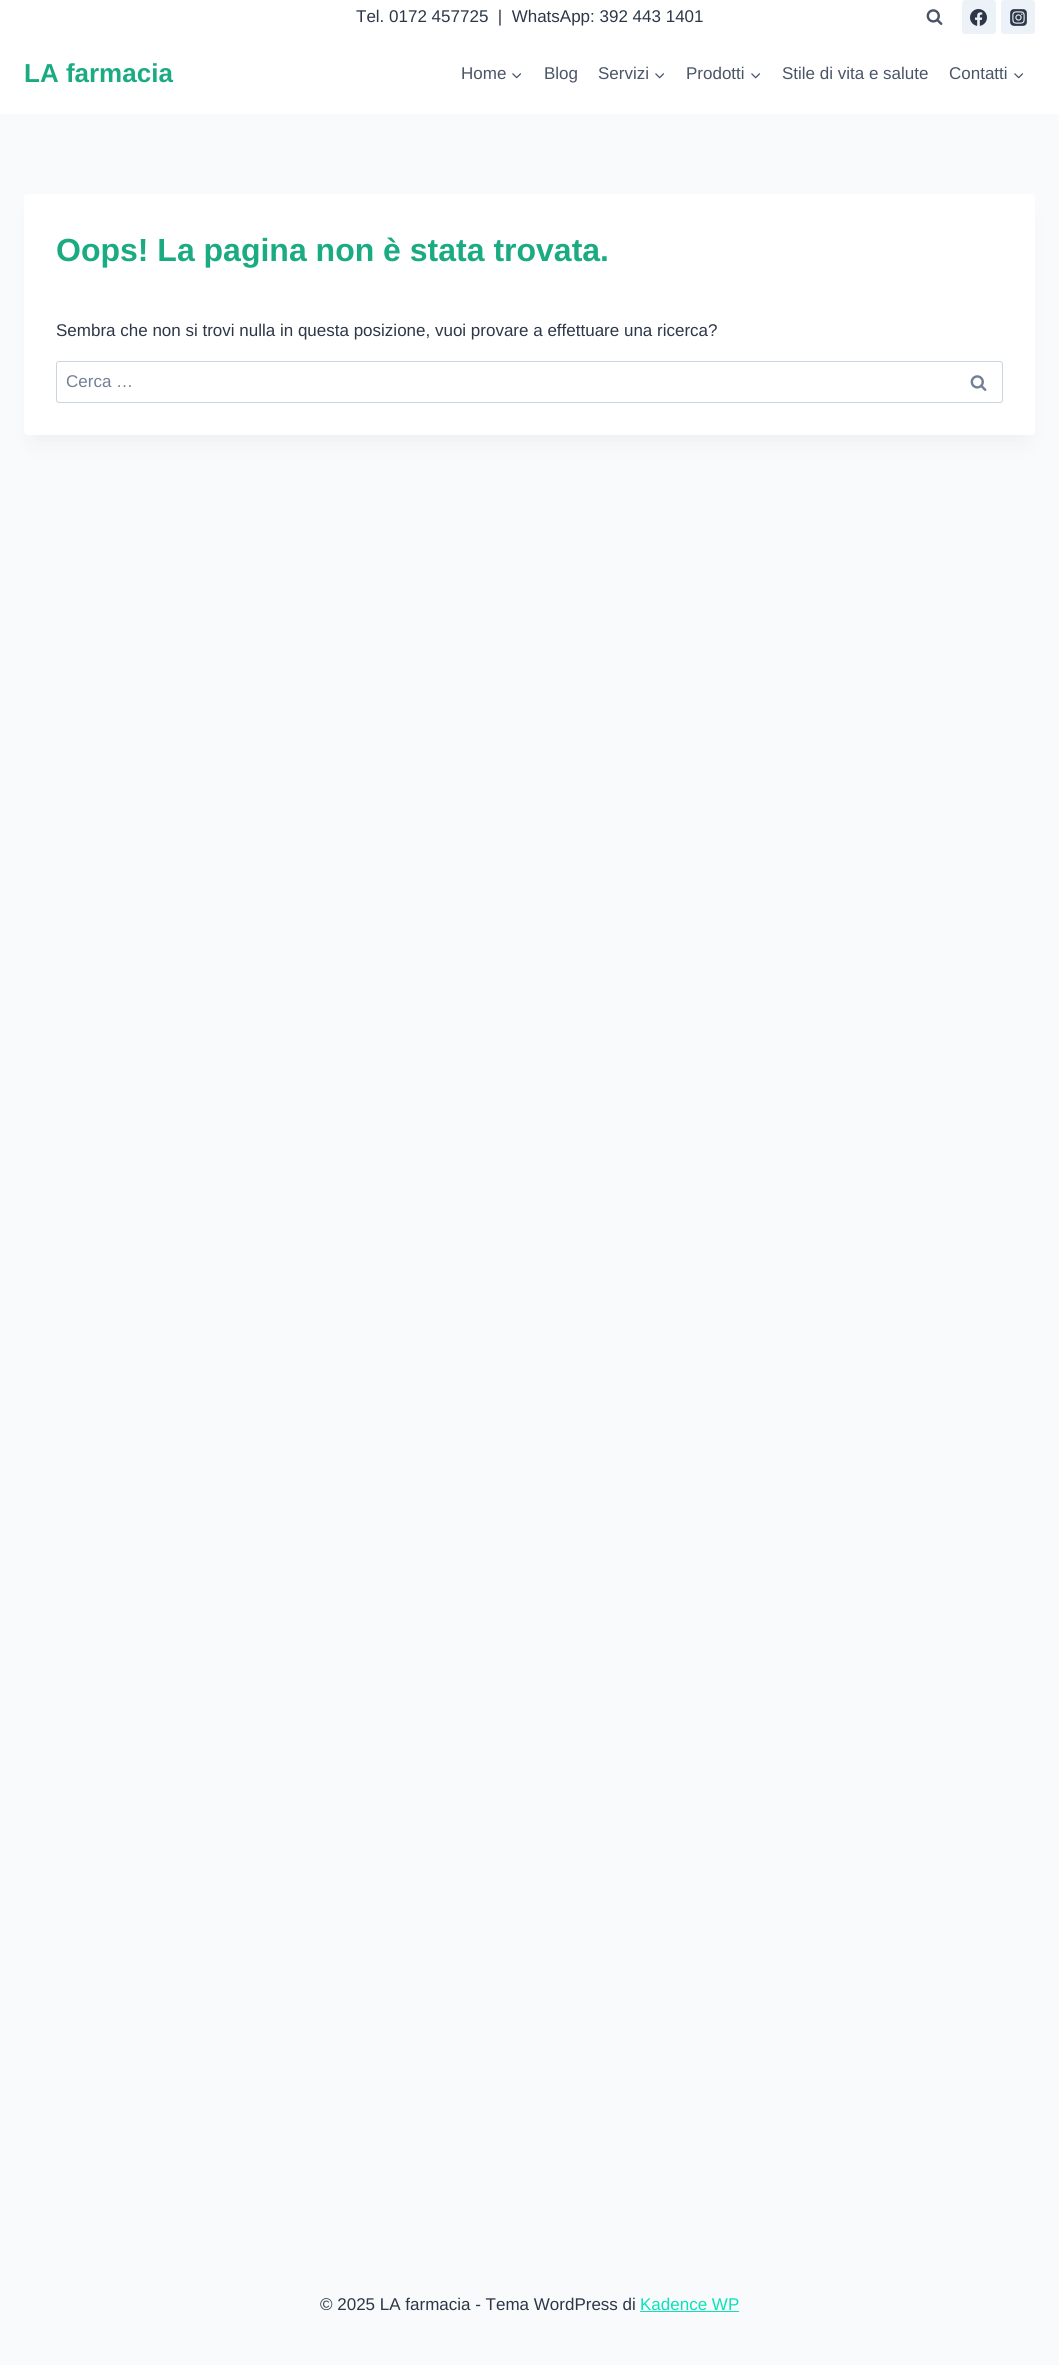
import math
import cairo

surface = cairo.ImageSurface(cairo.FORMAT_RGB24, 1059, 2365)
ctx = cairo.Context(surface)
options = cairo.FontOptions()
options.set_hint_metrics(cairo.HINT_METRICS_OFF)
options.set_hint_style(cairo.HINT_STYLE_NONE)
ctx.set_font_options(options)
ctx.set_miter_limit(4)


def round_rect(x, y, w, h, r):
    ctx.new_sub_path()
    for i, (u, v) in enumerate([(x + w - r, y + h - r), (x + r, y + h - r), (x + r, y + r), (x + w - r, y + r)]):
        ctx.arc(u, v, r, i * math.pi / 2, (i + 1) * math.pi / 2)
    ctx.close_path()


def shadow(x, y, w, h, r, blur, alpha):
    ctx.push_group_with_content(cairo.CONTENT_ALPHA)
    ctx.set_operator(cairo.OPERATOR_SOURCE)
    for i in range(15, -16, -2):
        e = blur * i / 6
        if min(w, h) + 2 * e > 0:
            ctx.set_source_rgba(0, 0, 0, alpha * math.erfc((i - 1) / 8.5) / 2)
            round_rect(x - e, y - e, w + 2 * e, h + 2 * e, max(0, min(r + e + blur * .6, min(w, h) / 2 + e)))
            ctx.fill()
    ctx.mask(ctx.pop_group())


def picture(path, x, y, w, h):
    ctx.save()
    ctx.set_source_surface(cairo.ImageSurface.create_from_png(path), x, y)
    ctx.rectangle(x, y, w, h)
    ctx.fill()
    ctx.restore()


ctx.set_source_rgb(0.969, 0.98, 0.988)
ctx.paint()
ctx.set_source_rgb(1, 1, 1)
ctx.rectangle(0, 0, 1059, 114)
ctx.fill()
ctx.select_font_face("Liberation Sans")
ctx.set_font_size(17)
ctx.set_source_rgb(0.176, 0.216, 0.282)
ctx.move_to(356, 22)
ctx.show_text("Tel. 0172 457725  |  WhatsApp: 392 443 1401")
picture("img1.png", 926, 9, 17, 16)
ctx.set_source_rgb(0.929, 0.949, 0.969)
round_rect(962, 0, 34, 34, 3)
ctx.fill()
picture("img2.png", 970, 9, 17, 17)
round_rect(1001, 0, 34, 34, 3)
ctx.fill()
picture("img3.png", 1010, 9, 17, 17)
ctx.select_font_face("Liberation Sans", cairo.FONT_SLANT_NORMAL, cairo.FONT_WEIGHT_BOLD)
ctx.set_font_size(26)
ctx.set_source_rgb(0.106, 0.671, 0.514)
ctx.move_to(24, 82)
ctx.show_text("LA farmacia")
ctx.select_font_face("Liberation Sans")
ctx.set_font_size(17)
ctx.set_source_rgb(0.29, 0.333, 0.408)
ctx.move_to(461, 79)
ctx.show_text("Home")
picture("img4.png", 512, 73, 10, 6)
ctx.move_to(544, 79)
ctx.show_text("Blog")
ctx.move_to(598, 79)
ctx.show_text("Servizi")
picture("img4.png", 655, 73, 10, 6)
ctx.move_to(686, 79)
ctx.show_text("Prodotti")
picture("img4.png", 751, 73, 10, 6)
ctx.move_to(782, 79)
ctx.show_text("Stile di vita e salute")
ctx.move_to(949, 79)
ctx.show_text("Contatti")
picture("img4.png", 1014, 73, 10, 6)
ctx.set_source_rgb(0, 0, 0)
shadow(34, 219, 991, 221, 0, 12.5, 0.05)
ctx.set_source_rgb(1, 1, 1)
round_rect(24, 194, 1011, 241, 4)
ctx.fill()
ctx.select_font_face("Liberation Sans", cairo.FONT_SLANT_NORMAL, cairo.FONT_WEIGHT_BOLD)
ctx.set_font_size(32)
ctx.set_source_rgb(0.106, 0.671, 0.514)
ctx.move_to(56, 261)
ctx.show_text("Oops! La pagina non è stata trovata.")
ctx.select_font_face("Liberation Sans")
ctx.set_font_size(17)
ctx.set_source_rgb(0.176, 0.216, 0.282)
ctx.move_to(56, 336)
ctx.show_text("Sembra che non si trovi nulla in questa posizione, vuoi provare a effettuare una ricerca?")
round_rect(56.5, 361.5, 946, 41, 2.5)
ctx.set_source_rgb(0.796, 0.835, 0.878)
ctx.set_line_width(1)
ctx.stroke()
ctx.set_source_rgb(0.443, 0.502, 0.588)
ctx.move_to(66, 387)
ctx.show_text("Cerca …")
picture("img5.png", 970, 375, 17, 16)
ctx.set_source_rgb(0.176, 0.216, 0.282)
ctx.move_to(320, 2310)
ctx.show_text("© 2025 LA farmacia - Tema WordPress di")
ctx.set_source_rgb(0.039, 0.89, 0.718)
ctx.move_to(640, 2310)
ctx.show_text("Kadence WP")
ctx.rectangle(640, 2311, 99, 1)
ctx.fill()
surface.write_to_png("page.png")
